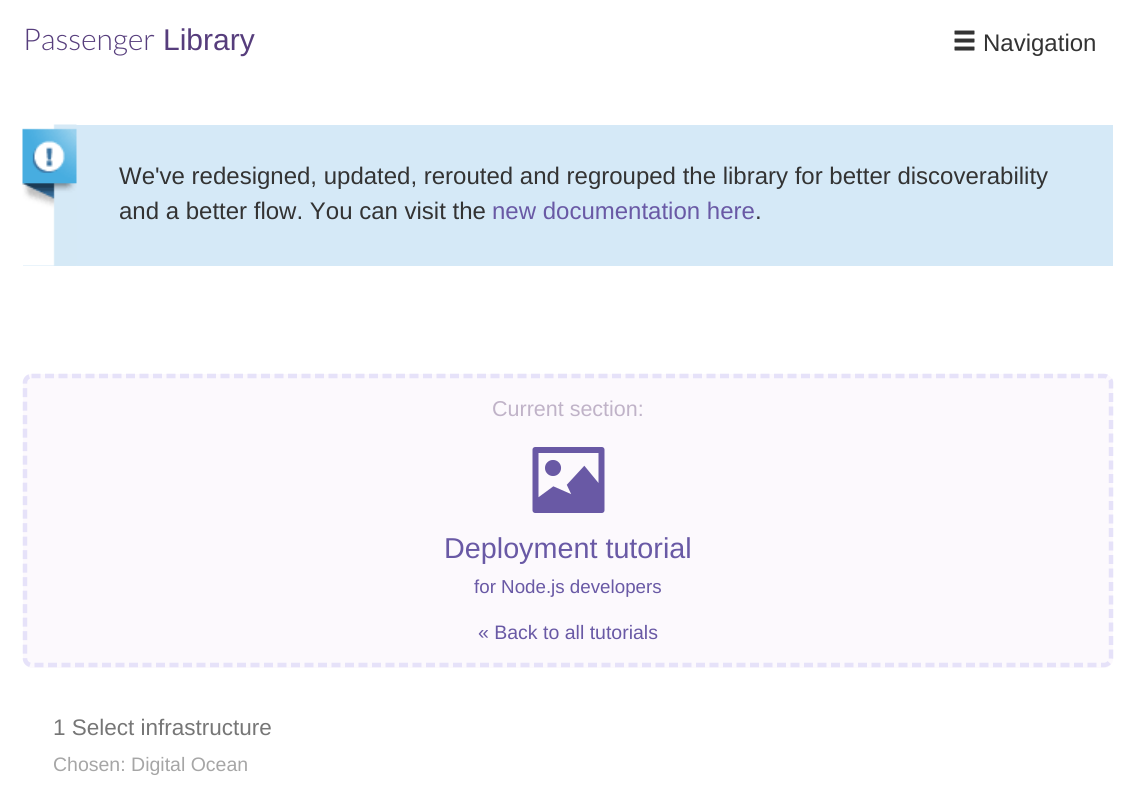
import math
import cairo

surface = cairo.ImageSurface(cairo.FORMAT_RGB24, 1135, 791)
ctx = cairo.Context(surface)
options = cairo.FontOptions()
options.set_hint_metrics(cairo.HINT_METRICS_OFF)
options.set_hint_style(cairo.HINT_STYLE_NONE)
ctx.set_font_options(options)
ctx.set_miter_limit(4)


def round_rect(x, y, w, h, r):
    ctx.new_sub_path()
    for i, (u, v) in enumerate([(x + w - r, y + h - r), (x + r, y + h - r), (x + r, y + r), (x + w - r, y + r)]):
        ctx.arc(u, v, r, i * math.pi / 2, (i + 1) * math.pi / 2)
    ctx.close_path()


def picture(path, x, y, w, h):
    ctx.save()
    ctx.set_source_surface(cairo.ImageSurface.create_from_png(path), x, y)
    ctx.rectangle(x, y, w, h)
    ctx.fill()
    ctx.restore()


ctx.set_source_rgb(1, 1, 1)
ctx.paint()
ctx.select_font_face("Lato Light")
ctx.set_font_size(30)
ctx.set_source_rgb(0.337, 0.239, 0.486)
ctx.move_to(23, 50)
ctx.show_text("Passenger")
ctx.select_font_face("Liberation Sans")
ctx.move_to(163, 50)
ctx.show_text("Library")
picture("img1.png", 954, 30, 21, 21)
ctx.set_font_size(24)
ctx.set_source_rgb(0.2, 0.2, 0.2)
ctx.move_to(983, 51)
ctx.show_text("Navigation")
ctx.set_source_rgb(0.835, 0.914, 0.965)
ctx.rectangle(23, 125, 1090, 141)
ctx.fill()
picture("img2.png", 22, 124, 55, 142)
ctx.set_source_rgb(0.2, 0.2, 0.2)
ctx.move_to(119, 184)
ctx.show_text("We've redesigned, updated, rerouted and regrouped the library for better discoverability")
ctx.move_to(119, 219)
ctx.show_text("and a better flow. You can visit the")
ctx.set_source_rgb(0.412, 0.349, 0.647)
ctx.move_to(492, 219)
ctx.show_text("new documentation here")
ctx.set_source_rgb(0.2, 0.2, 0.2)
ctx.move_to(755, 219)
ctx.show_text(".")
ctx.set_source_rgb(0.988, 0.973, 0.992)
round_rect(23, 374, 1090, 294, 9)
ctx.fill()
ctx.new_path()
ctx.move_to(31.5, 376)
ctx.line_to(1104, 376)
ctx.curve_to(1107.5, 376, 1111, 379, 1111, 382.5)
ctx.line_to(1111, 658.5)
ctx.curve_to(1111, 662, 1107.5, 665, 1104, 665)
ctx.line_to(31.5, 665)
ctx.curve_to(28, 665, 25, 662, 25, 658.5)
ctx.line_to(25, 382.5)
ctx.curve_to(25, 379, 28, 376, 31.5, 376)
ctx.close_path()
ctx.set_source_rgb(0.902, 0.886, 0.976)
ctx.set_line_width(4.5)
ctx.set_dash([9, 4.5])
ctx.stroke()
ctx.set_font_size(21.5)
ctx.set_source_rgb(0.753, 0.702, 0.784)
ctx.move_to(492, 416)
ctx.show_text("Current section:")
picture("img3.png", 532, 447, 73, 66)
ctx.set_font_size(28.75)
ctx.set_source_rgb(0.412, 0.349, 0.647)
ctx.move_to(444, 558)
ctx.show_text("Deployment tutorial")
ctx.set_font_size(18.75)
ctx.move_to(474, 593)
ctx.show_text("for Node.js developers")
ctx.set_font_size(19.5)
ctx.move_to(478, 639)
ctx.show_text("« Back to all tutorials")
ctx.set_font_size(22.5)
ctx.set_source_rgb(0.463, 0.463, 0.463)
ctx.move_to(53, 735)
ctx.show_text("1 Select infrastructure")
ctx.set_font_size(19.5)
ctx.set_source_rgb(0.651, 0.651, 0.651)
ctx.move_to(53, 771)
ctx.show_text("Chosen: Digital Ocean")
surface.write_to_png("page.png")
